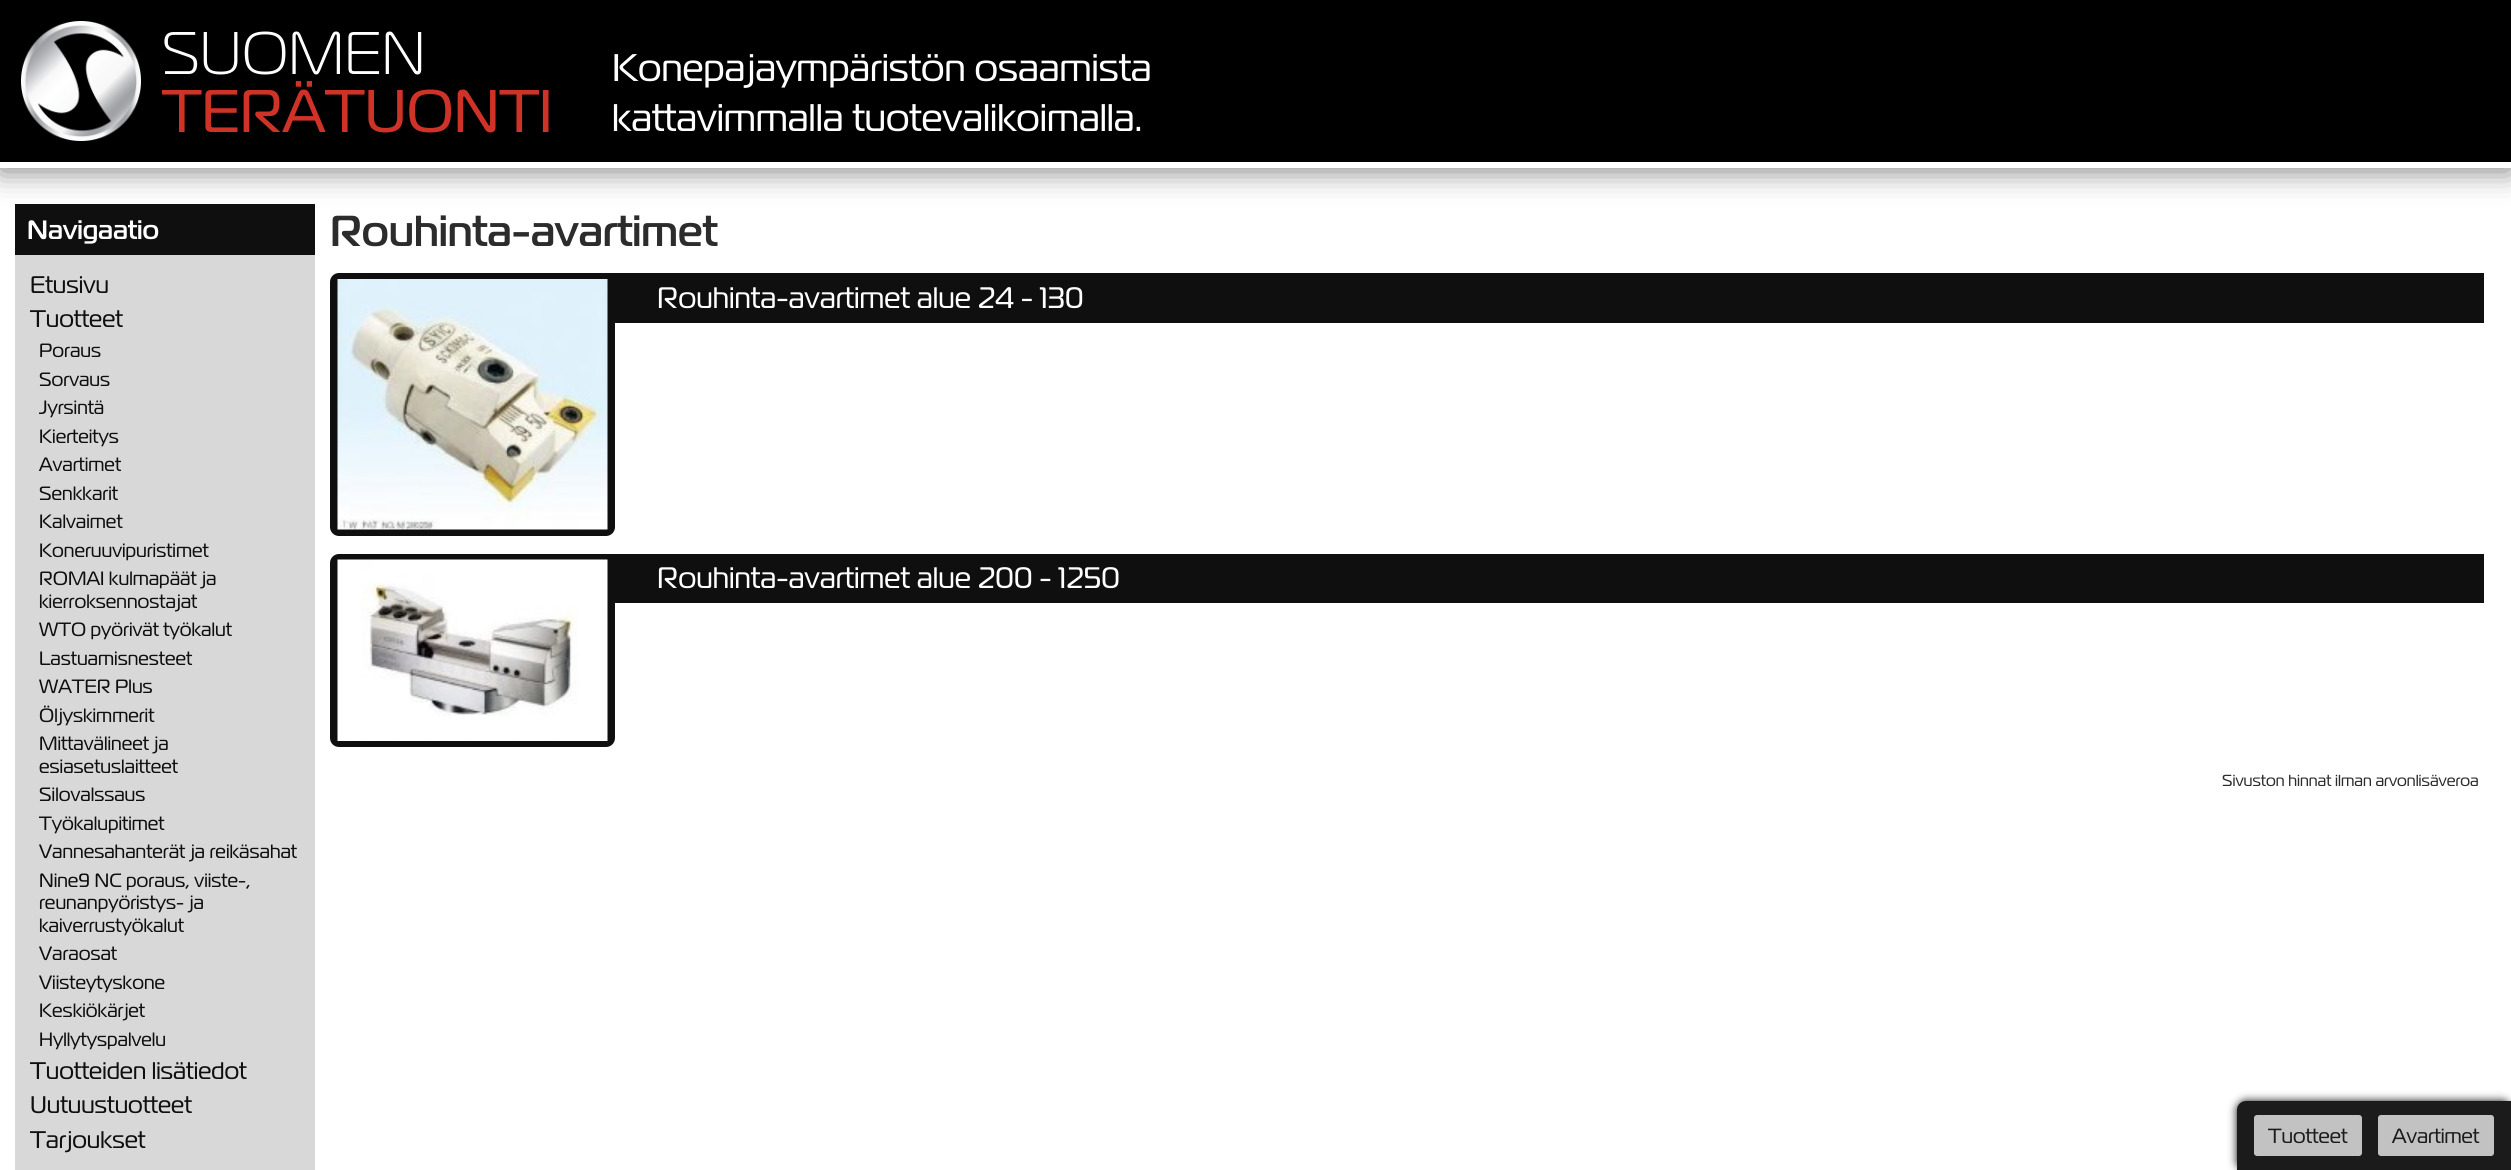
import math
import cairo

surface = cairo.ImageSurface(cairo.FORMAT_RGB24, 2511, 1170)
ctx = cairo.Context(surface)
options = cairo.FontOptions()
options.set_hint_metrics(cairo.HINT_METRICS_OFF)
options.set_hint_style(cairo.HINT_STYLE_NONE)
ctx.set_font_options(options)
ctx.set_miter_limit(4)


def round_rect(x, y, w, h, r):
    ctx.new_sub_path()
    for i, (u, v) in enumerate([(x + w - r, y + h - r), (x + r, y + h - r), (x + r, y + r), (x + w - r, y + r)]):
        ctx.arc(u, v, r, i * math.pi / 2, (i + 1) * math.pi / 2)
    ctx.close_path()


def shadow(x, y, w, h, r, blur, alpha):
    ctx.push_group_with_content(cairo.CONTENT_ALPHA)
    ctx.set_operator(cairo.OPERATOR_SOURCE)
    for i in range(15, -16, -2):
        e = blur * i / 6
        if min(w, h) + 2 * e > 0:
            ctx.set_source_rgba(0, 0, 0, alpha * math.erfc((i - 1) / 8.5) / 2)
            round_rect(x - e, y - e, w + 2 * e, h + 2 * e, max(0, min(r + e + blur * .6, min(w, h) / 2 + e)))
            ctx.fill()
    ctx.mask(ctx.pop_group())


def picture(path, x, y, w, h):
    ctx.save()
    ctx.set_source_surface(cairo.ImageSurface.create_from_png(path), x, y)
    ctx.rectangle(x, y, w, h)
    ctx.fill()
    ctx.restore()


ctx.set_source_rgb(1, 1, 1)
ctx.paint()
ctx.set_source_rgb(0.502, 0.502, 0.502)
shadow(0, 3, 2511, 168, 0, 15, 1)
ctx.set_source_rgb(0, 0, 0)
ctx.rectangle(0, 0, 2511, 162)
ctx.fill()
ctx.set_source_rgb(1, 1, 1)
ctx.rectangle(0, 162, 2511, 6)
ctx.fill()
picture("img1.png", 21, 21, 120, 120)
ctx.select_font_face("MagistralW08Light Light")
ctx.set_font_size(60)
ctx.move_to(162, 74)
ctx.show_text("SUOMEN")
ctx.select_font_face("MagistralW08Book")
ctx.set_source_rgb(0.812, 0.2, 0.153)
ctx.move_to(162, 132)
ctx.show_text("TERÄTUONTI")
ctx.set_font_size(38.4)
ctx.set_source_rgb(1, 1, 1)
ctx.move_to(612, 81)
ctx.show_text("Konepajaympäristön osaamista")
ctx.move_to(612, 131)
ctx.show_text("kattavimmalla tuotevalikoimalla.")
ctx.set_source_rgb(0.059, 0.059, 0.059)
ctx.rectangle(15, 204, 300, 51)
ctx.fill()
ctx.select_font_face("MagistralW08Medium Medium")
ctx.set_font_size(26.5)
ctx.set_source_rgb(1, 1, 1)
ctx.move_to(27, 239)
ctx.show_text("Navigaatio")
ctx.set_source_rgb(0.847, 0.847, 0.847)
ctx.rectangle(15, 255, 300, 915)
ctx.fill()
ctx.select_font_face("MagistralW08Book")
ctx.set_font_size(24)
ctx.set_source_rgb(0.059, 0.059, 0.059)
ctx.move_to(30, 293)
ctx.show_text("Etusivu")
ctx.move_to(30, 327)
ctx.show_text("Tuotteet")
ctx.set_font_size(19.25)
ctx.move_to(39, 357)
ctx.show_text("Poraus")
ctx.move_to(39, 386)
ctx.show_text("Sorvaus")
ctx.move_to(39, 414)
ctx.show_text("Jyrsintä")
ctx.move_to(39, 443)
ctx.show_text("Kierteitys")
ctx.move_to(39, 471)
ctx.show_text("Avartimet")
ctx.move_to(39, 500)
ctx.show_text("Senkkarit")
ctx.move_to(39, 528)
ctx.show_text("Kalvaimet")
ctx.move_to(39, 557)
ctx.show_text("Koneruuvipuristimet")
ctx.move_to(39, 585)
ctx.show_text("ROMAI kulmapäät ja")
ctx.move_to(39, 608)
ctx.show_text("kierroksennostajat")
ctx.move_to(39, 636)
ctx.show_text("WTO pyörivät työkalut")
ctx.move_to(39, 665)
ctx.show_text("Lastuamisnesteet")
ctx.move_to(39, 693)
ctx.show_text("WATER Plus")
ctx.move_to(39, 722)
ctx.show_text("Öljyskimmerit")
ctx.move_to(39, 750)
ctx.show_text("Mittavälineet ja")
ctx.move_to(39, 773)
ctx.show_text("esiasetuslaitteet")
ctx.move_to(39, 801)
ctx.show_text("Silovalssaus")
ctx.move_to(39, 830)
ctx.show_text("Työkalupitimet")
ctx.move_to(39, 858)
ctx.show_text("Vannesahanterät ja reikäsahat")
ctx.move_to(39, 887)
ctx.show_text("Nine9 NC poraus, viiste-,")
ctx.move_to(39, 909)
ctx.show_text("reunanpyöristys- ja")
ctx.move_to(39, 932)
ctx.show_text("kaiverrustyökalut")
ctx.move_to(39, 960)
ctx.show_text("Varaosat")
ctx.move_to(39, 989)
ctx.show_text("Viisteytyskone")
ctx.move_to(39, 1017)
ctx.show_text("Keskiökärjet")
ctx.move_to(39, 1046)
ctx.show_text("Hyllytyspalvelu")
ctx.set_font_size(24)
ctx.move_to(30, 1079)
ctx.show_text("Tuotteiden lisätiedot")
ctx.move_to(30, 1113)
ctx.show_text("Uutuustuotteet")
ctx.move_to(30, 1148)
ctx.show_text("Tarjoukset")
ctx.select_font_face("MagistralW08Medium Medium")
ctx.set_font_size(43.25)
ctx.set_source_rgb(0.173, 0.173, 0.173)
ctx.move_to(330, 246)
ctx.show_text("Rouhinta-avartimet")
ctx.set_source_rgb(0.059, 0.059, 0.059)
ctx.new_path()
ctx.move_to(339, 273)
ctx.line_to(615, 273)
ctx.line_to(615, 527)
ctx.curve_to(615, 532, 611, 536, 606, 536)
ctx.line_to(339, 536)
ctx.curve_to(334, 536, 330, 532, 330, 527)
ctx.line_to(330, 282)
ctx.curve_to(330, 277, 334, 273, 339, 273)
ctx.close_path()
ctx.fill()
picture("img2.png", 337, 279, 271, 251)
ctx.rectangle(615, 273, 1869, 50)
ctx.fill()
ctx.select_font_face("MagistralW08Book")
ctx.set_font_size(29.6)
ctx.set_source_rgb(1, 1, 1)
ctx.move_to(657, 308)
ctx.show_text("Rouhinta-avartimet alue 24 - 130")
ctx.set_source_rgb(0.059, 0.059, 0.059)
ctx.new_path()
ctx.move_to(339, 554)
ctx.line_to(615, 554)
ctx.line_to(615, 738)
ctx.curve_to(615, 743, 611, 747, 606, 747)
ctx.line_to(339, 747)
ctx.curve_to(334, 747, 330, 743, 330, 738)
ctx.line_to(330, 563)
ctx.curve_to(330, 558, 334, 554, 339, 554)
ctx.close_path()
ctx.fill()
picture("img3.png", 337, 559, 271, 182)
ctx.rectangle(615, 554, 1869, 49)
ctx.fill()
ctx.set_source_rgb(1, 1, 1)
ctx.move_to(657, 588)
ctx.show_text("Rouhinta-avartimet alue 200 - 1250")
ctx.set_font_size(16)
ctx.set_source_rgb(0.173, 0.173, 0.173)
ctx.move_to(2222, 786)
ctx.show_text("Sivuston hinnat ilman arvonlisäveroa")
ctx.set_source_rgb(0.051, 0.051, 0.051)
shadow(2237, 1101, 274, 69, 9, 4.5, 1)
ctx.set_source_rgb(0.106, 0.106, 0.106)
ctx.new_path()
ctx.move_to(2246, 1101)
ctx.line_to(2511, 1101)
ctx.line_to(2511, 1170)
ctx.line_to(2237, 1170)
ctx.line_to(2237, 1110)
ctx.curve_to(2237, 1105, 2241, 1101, 2246, 1101)
ctx.close_path()
ctx.fill()
ctx.set_source_rgb(0.761, 0.761, 0.761)
round_rect(2253, 1114, 110, 43, 4)
ctx.fill_preserve()
ctx.set_source_rgb(0.106, 0.106, 0.106)
ctx.stroke()
ctx.set_font_size(20.5)
ctx.move_to(2268, 1143)
ctx.show_text("Tuotteet")
ctx.set_source_rgb(0.761, 0.761, 0.761)
round_rect(2377, 1114, 118, 43, 4)
ctx.fill_preserve()
ctx.set_source_rgb(0.106, 0.106, 0.106)
ctx.stroke()
ctx.move_to(2392, 1143)
ctx.show_text("Avartimet")
surface.write_to_png("page.png")
